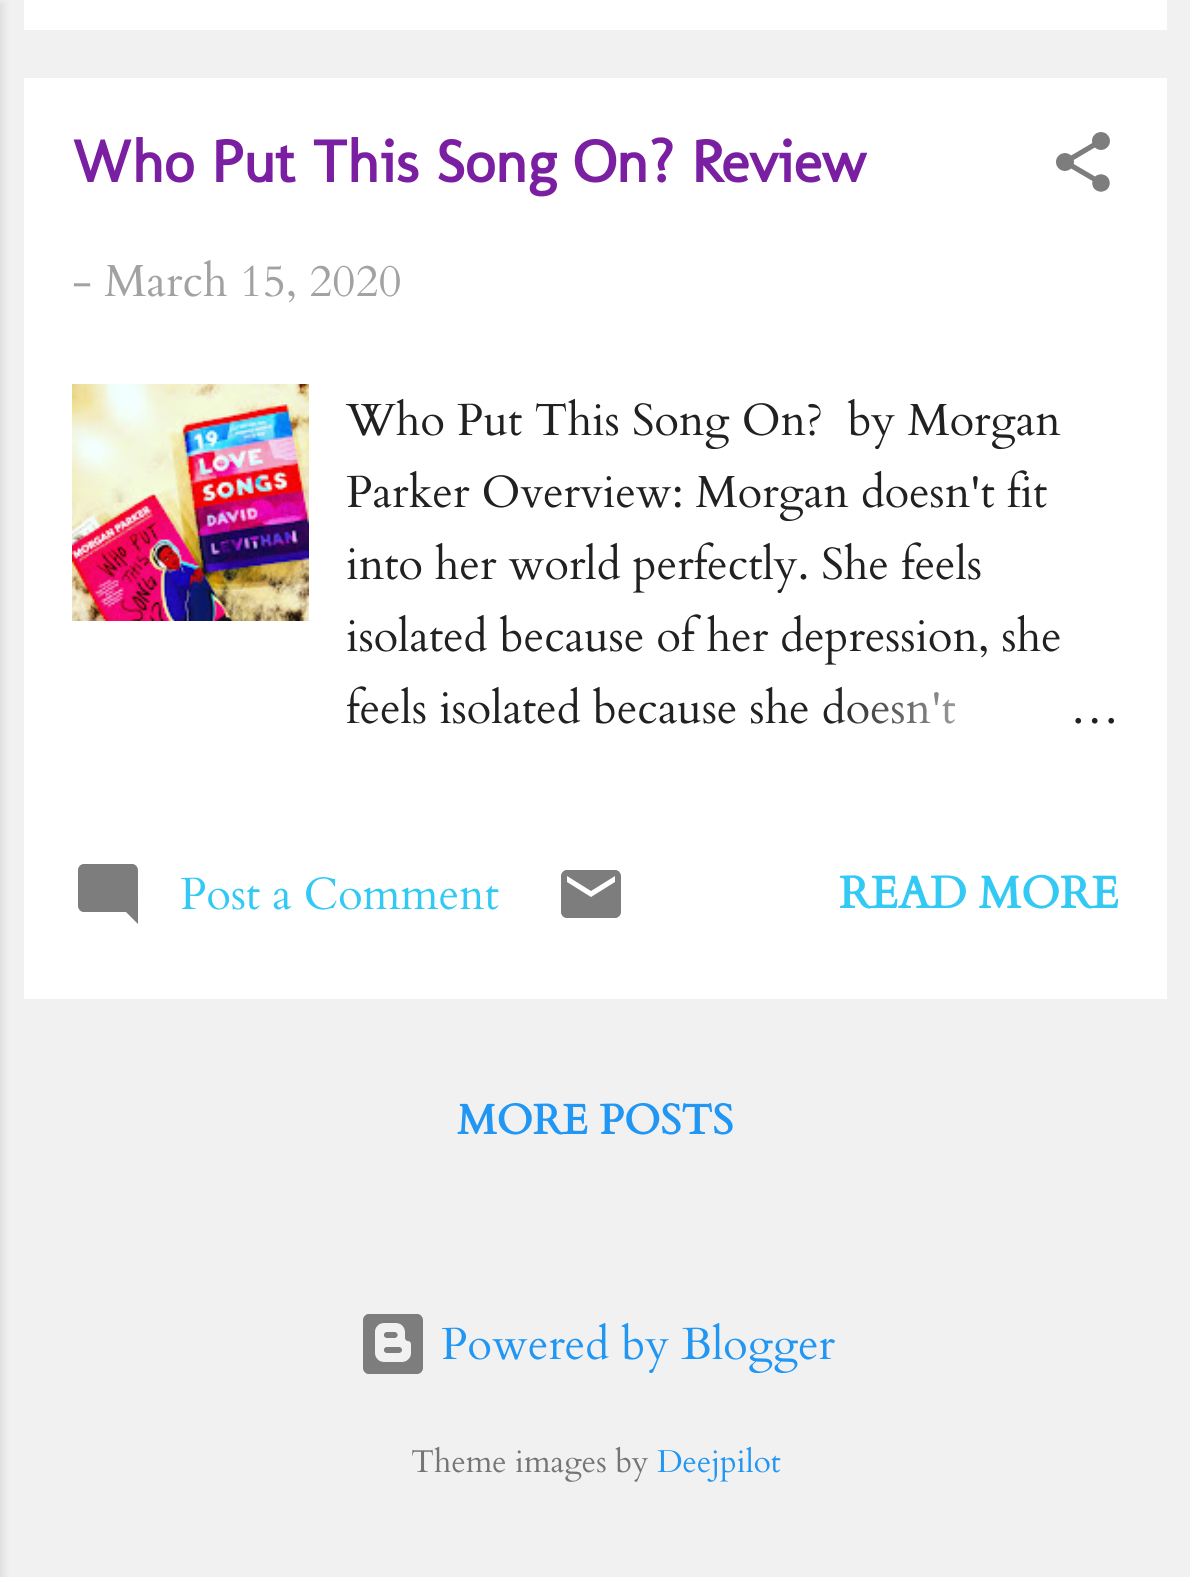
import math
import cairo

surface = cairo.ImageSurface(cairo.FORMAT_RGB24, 1190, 1577)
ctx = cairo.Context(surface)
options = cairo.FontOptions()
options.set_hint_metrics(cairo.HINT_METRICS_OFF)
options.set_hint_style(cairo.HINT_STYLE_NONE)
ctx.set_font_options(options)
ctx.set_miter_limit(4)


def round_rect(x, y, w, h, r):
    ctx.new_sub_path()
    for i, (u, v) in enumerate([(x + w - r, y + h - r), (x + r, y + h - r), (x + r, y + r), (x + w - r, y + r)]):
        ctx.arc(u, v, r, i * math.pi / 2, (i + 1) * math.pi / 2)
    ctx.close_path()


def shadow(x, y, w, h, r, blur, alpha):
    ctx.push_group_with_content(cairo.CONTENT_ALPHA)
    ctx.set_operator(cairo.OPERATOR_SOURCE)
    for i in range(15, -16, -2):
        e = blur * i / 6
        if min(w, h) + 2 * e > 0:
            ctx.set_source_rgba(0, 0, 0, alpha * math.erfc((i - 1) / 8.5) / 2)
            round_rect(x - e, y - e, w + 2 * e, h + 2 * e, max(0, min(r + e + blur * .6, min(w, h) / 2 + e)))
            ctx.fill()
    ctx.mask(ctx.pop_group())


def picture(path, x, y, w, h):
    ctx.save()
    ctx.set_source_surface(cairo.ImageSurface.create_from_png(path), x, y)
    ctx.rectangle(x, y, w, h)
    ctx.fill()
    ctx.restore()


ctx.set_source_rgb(0.945, 0.945, 0.945)
ctx.paint()
ctx.set_source_rgb(0, 0, 0)
shadow(-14, 3, 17, 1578, 0, 4.5, 0.1)
ctx.set_source_rgb(1, 1, 1)
ctx.rectangle(24, 0, 1143, 30)
ctx.fill()
ctx.rectangle(24, 78, 1143, 921)
ctx.fill()
ctx.select_font_face("Molengo", cairo.FONT_SLANT_NORMAL, cairo.FONT_WEIGHT_BOLD)
ctx.set_font_size(60)
ctx.set_source_rgb(0.482, 0.122, 0.635)
ctx.move_to(72, 182)
ctx.show_text("Who Put This Song On? Review")
picture("img1.png", 1056, 132, 54, 60)
ctx.select_font_face("Cardo")
ctx.set_font_size(45)
ctx.set_source_rgb(0.635, 0.635, 0.635)
ctx.move_to(72, 296)
ctx.show_text("- March 15, 2020")
picture("img2.png", 72, 384, 237, 237)
ctx.set_source_rgb(0.129, 0.129, 0.129)
ctx.move_to(346, 435)
ctx.show_text("Who Put This Song On?  by Morgan")
ctx.move_to(346, 507)
ctx.show_text("Parker Overview: Morgan doesn't fit")
ctx.move_to(346, 579)
ctx.show_text("into her world perfectly. She feels")
ctx.move_to(346, 651)
ctx.show_text("isolated because of her depression, she")
ctx.move_to(346, 723)
ctx.show_text("feels isolated because she doesn't")
gradient = cairo.LinearGradient(1119, 708, 831, 708)
gradient.add_color_stop_rgba(0, 1, 1, 1, 1)
gradient.add_color_stop_rgba(0.2, 1, 1, 1, 1)
gradient.add_color_stop_rgba(1, 1, 1, 1, 0)
ctx.set_source(gradient)
ctx.rectangle(836, 687, 119, 37)
ctx.fill()
ctx.set_source_rgb(0.129, 0.129, 0.129)
ctx.move_to(1070, 723)
ctx.show_text("…")
picture("img3.png", 78, 864, 60, 60)
ctx.set_source_rgb(0.196, 0.788, 0.957)
ctx.move_to(180, 909)
ctx.show_text("Post a Comment")
picture("img4.png", 561, 870, 60, 48)
ctx.select_font_face("Cardo", cairo.FONT_SLANT_NORMAL, cairo.FONT_WEIGHT_BOLD)
ctx.move_to(839, 908)
ctx.show_text("READ MORE")
ctx.set_font_size(42)
ctx.set_source_rgb(0.129, 0.588, 0.953)
ctx.move_to(457, 1134)
ctx.show_text("MORE POSTS")
picture("img5.png", 363, 1314, 60, 60)
ctx.select_font_face("Cardo")
ctx.set_font_size(45)
ctx.move_to(441, 1359)
ctx.show_text("Powered by Blogger")
ctx.set_font_size(31.5)
ctx.set_source_rgb(0.459, 0.459, 0.459)
ctx.move_to(411, 1472)
ctx.show_text("Theme images by")
ctx.set_source_rgb(0.129, 0.588, 0.953)
ctx.move_to(657, 1472)
ctx.show_text("Deejpilot")
surface.write_to_png("page.png")
